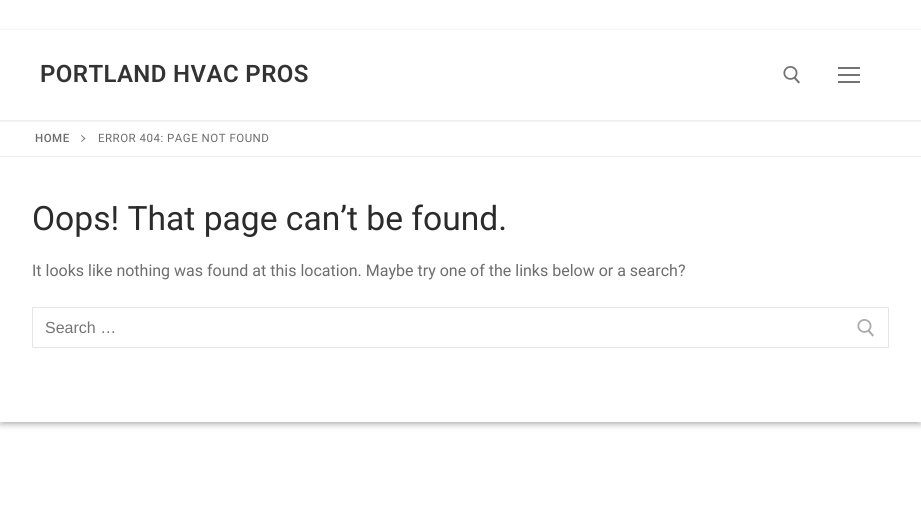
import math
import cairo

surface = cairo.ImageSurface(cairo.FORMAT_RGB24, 921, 512)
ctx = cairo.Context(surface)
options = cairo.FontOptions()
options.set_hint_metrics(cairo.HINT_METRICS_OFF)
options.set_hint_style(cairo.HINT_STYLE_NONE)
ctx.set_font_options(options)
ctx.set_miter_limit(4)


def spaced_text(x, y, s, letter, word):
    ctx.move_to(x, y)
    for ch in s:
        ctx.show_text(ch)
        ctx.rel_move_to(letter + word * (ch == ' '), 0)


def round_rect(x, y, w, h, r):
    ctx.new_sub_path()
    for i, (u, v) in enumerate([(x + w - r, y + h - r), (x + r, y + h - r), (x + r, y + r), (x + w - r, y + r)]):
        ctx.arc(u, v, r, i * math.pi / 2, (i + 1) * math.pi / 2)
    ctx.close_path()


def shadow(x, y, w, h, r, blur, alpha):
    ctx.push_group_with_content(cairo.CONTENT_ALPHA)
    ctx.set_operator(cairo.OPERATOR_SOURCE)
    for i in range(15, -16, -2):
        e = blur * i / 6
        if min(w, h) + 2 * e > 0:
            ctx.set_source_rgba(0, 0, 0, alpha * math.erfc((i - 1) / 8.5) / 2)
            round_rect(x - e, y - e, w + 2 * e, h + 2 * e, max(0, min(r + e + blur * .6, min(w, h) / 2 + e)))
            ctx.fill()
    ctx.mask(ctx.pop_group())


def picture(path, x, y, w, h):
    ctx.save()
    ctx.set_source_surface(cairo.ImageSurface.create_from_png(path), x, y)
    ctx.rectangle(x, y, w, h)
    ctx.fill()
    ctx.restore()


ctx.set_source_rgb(1, 1, 1)
ctx.paint()
ctx.save()
ctx.set_fill_rule(cairo.FILL_RULE_EVEN_ODD)
ctx.new_path()
ctx.move_to(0, 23)
ctx.line_to(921, 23)
ctx.line_to(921, 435)
ctx.line_to(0, 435)
ctx.close_path()
ctx.move_to(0, 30)
ctx.line_to(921, 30)
ctx.line_to(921, 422)
ctx.line_to(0, 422)
ctx.close_path()
ctx.clip()
ctx.set_source_rgb(0, 0, 0)
shadow(0, 33, 921, 392, 0, 3, 0.23)
ctx.restore()
ctx.save()
ctx.rectangle(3, 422, 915, 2)
ctx.clip()
ctx.set_source_rgb(0, 0, 0)
shadow(4, 37, 913, 384, 0, 3, 0.16)
ctx.restore()
ctx.save()
ctx.set_fill_rule(cairo.FILL_RULE_EVEN_ODD)
ctx.new_path()
ctx.move_to(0, 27)
ctx.line_to(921, 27)
ctx.line_to(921, 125)
ctx.line_to(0, 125)
ctx.close_path()
ctx.move_to(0, 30)
ctx.line_to(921, 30)
ctx.line_to(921, 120)
ctx.line_to(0, 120)
ctx.close_path()
ctx.clip()
ctx.set_source_rgb(0.882, 0.898, 0.918)
shadow(0, 31, 921, 90, 0, 1, 1)
ctx.restore()
ctx.select_font_face("Roboto SemiBold")
ctx.set_font_size(24)
ctx.set_source_rgb(0.2, 0.2, 0.2)
spaced_text(40, 82, "PORTLAND HVAC PROS", 0.4, 0)
picture("img1.png", 783, 66, 17, 18)
ctx.set_source_rgb(0.451, 0.451, 0.451)
ctx.rectangle(838, 74, 22, 2)
ctx.fill()
ctx.rectangle(838, 67, 22, 2)
ctx.fill()
ctx.rectangle(838, 81, 22, 2)
ctx.fill()
ctx.set_source_rgb(0.918, 0.925, 0.933)
ctx.rectangle(0, 156, 921, 1)
ctx.fill()
ctx.select_font_face("Roboto Medium")
ctx.set_font_size(11.5)
ctx.set_source_rgb(0.427, 0.427, 0.427)
spaced_text(35, 142, "HOME", 0.5, 0)
ctx.new_path()
ctx.move_to(85.5, 138.5)
ctx.line_to(81.5, 142)
ctx.line_to(81, 141.5)
ctx.line_to(84.5, 138)
ctx.close_path()
ctx.fill()
ctx.new_path()
ctx.move_to(85.5, 138.5)
ctx.line_to(84.5, 139)
ctx.line_to(81, 135.5)
ctx.line_to(81.5, 135)
ctx.close_path()
ctx.fill()
ctx.select_font_face("Roboto")
spaced_text(98, 142, "ERROR 404: PAGE NOT FOUND", 0.5, 0)
ctx.set_font_size(33.6)
ctx.set_source_rgb(0.169, 0.169, 0.169)
ctx.move_to(32, 230)
ctx.show_text("Oops! That page can’t be found.")
ctx.set_font_size(16)
ctx.set_source_rgb(0.427, 0.427, 0.427)
ctx.move_to(32, 276)
ctx.show_text("It looks like nothing was found at this location. Maybe try one of the links below or a search?")
round_rect(32.5, 307.5, 856, 40, 0.5)
ctx.set_source_rgb(0.898, 0.898, 0.898)
ctx.set_line_width(1)
ctx.stroke()
ctx.select_font_face("Liberation Sans")
ctx.set_source_rgb(0.459, 0.459, 0.459)
ctx.move_to(45, 333)
ctx.show_text("Search …")
picture("img2.png", 857, 319, 17, 18)
surface.write_to_png("page.png")
